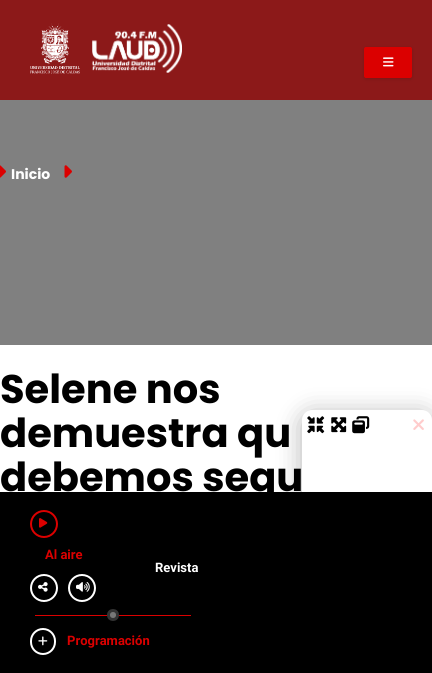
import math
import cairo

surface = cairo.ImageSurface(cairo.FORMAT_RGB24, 432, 673)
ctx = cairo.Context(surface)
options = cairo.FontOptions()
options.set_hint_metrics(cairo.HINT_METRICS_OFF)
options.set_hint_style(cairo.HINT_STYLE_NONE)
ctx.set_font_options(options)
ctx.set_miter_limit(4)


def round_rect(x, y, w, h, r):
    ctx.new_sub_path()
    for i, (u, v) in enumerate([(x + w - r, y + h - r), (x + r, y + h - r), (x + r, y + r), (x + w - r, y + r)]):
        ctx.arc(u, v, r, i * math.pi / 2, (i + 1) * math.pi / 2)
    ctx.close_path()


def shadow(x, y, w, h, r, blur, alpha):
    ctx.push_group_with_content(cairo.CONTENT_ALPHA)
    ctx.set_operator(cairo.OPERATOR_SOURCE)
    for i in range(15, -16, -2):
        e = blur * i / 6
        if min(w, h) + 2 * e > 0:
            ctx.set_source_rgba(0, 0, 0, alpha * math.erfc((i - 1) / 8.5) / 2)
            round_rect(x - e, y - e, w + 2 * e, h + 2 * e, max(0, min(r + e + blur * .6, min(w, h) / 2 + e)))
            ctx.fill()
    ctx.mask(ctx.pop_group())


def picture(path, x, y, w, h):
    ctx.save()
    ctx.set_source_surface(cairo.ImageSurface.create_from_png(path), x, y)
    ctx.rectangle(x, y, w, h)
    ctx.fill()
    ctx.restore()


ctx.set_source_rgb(1, 1, 1)
ctx.paint()
ctx.set_source_rgb(0.549, 0.098, 0.098)
ctx.rectangle(0, 0, 432, 100)
ctx.fill()
picture("img1.png", 30, 23, 50, 51)
picture("img2.png", 92, 24, 90, 49)
ctx.set_source_rgb(0, 0, 0)
shadow(364, 48, 48, 31, 2, 2, 0.14)
ctx.set_source_rgb(0.859, 0, 0)
round_rect(364, 47, 48, 31, 2)
ctx.fill()
picture("img3.png", 383, 57, 11, 10)
ctx.set_source_rgb(0.502, 0.502, 0.502)
ctx.rectangle(0, 100, 432, 245)
ctx.fill()
picture("img4.png", 0, 165, 6, 13)
ctx.select_font_face("Poppins", cairo.FONT_SLANT_NORMAL, cairo.FONT_WEIGHT_BOLD)
ctx.set_font_size(14)
ctx.set_source_rgb(1, 1, 1)
ctx.move_to(11, 179)
ctx.show_text("Inicio")
picture("img5.png", 64, 165, 8, 13)
ctx.set_font_size(40)
ctx.set_source_rgb(0, 0, 0)
ctx.move_to(0, 403)
ctx.show_text("Selene nos")
ctx.move_to(0, 447)
ctx.show_text("demuestra qu")
ctx.move_to(0, 491)
ctx.show_text("debemos segu")
ctx.set_source_rgb(0, 0, 0)
shadow(302, 414, 130, 202, 10, 12.5, 0.3)
ctx.set_source_rgb(1, 1, 1)
round_rect(302, 410, 130, 202, 10)
ctx.fill()
picture("img6.png", 307, 416, 18, 18)
picture("img7.png", 331, 417, 16, 16)
picture("img8.png", 352, 416, 18, 18)
picture("img9.png", 413, 419, 11, 11)
ctx.set_source_rgb(0, 0, 0)
ctx.rectangle(0, 492, 432, 181)
ctx.fill()
ctx.arc(44, 524, 13, 0, 2 * math.pi)
ctx.set_source_rgb(0.859, 0, 0)
ctx.stroke()
picture("img10.png", 39, 518, 9, 10)
ctx.select_font_face("Roboto", cairo.FONT_SLANT_NORMAL, cairo.FONT_WEIGHT_BOLD)
ctx.set_font_size(13)
ctx.move_to(45, 559)
ctx.show_text("Al aire")
ctx.set_source_rgb(1, 1, 1)
ctx.move_to(155, 572)
ctx.show_text("Revista")
ctx.new_path()
ctx.arc(44, 588, 13, 0, 2 * math.pi)
ctx.stroke()
picture("img11.png", 38, 582, 10, 10)
ctx.arc(82, 588, 13, 0, 2 * math.pi)
ctx.stroke()
picture("img12.png", 76, 582, 14, 10)
ctx.set_source_rgb(0.859, 0, 0)
ctx.rectangle(35, 615, 156, 1)
ctx.fill()
ctx.set_source_rgb(0.467, 0.467, 0.467)
ctx.arc(113, 615, 4.5, 0, 2 * math.pi)
ctx.fill_preserve()
ctx.set_source_rgb(0.2, 0.2, 0.2)
ctx.set_line_width(3)
ctx.stroke()
round_rect(31, 629, 24, 25, 12)
ctx.set_source_rgb(1, 1, 1)
ctx.set_line_width(2)
ctx.stroke()
picture("img13.png", 38, 636, 10, 10)
ctx.set_source_rgb(0.859, 0, 0)
ctx.move_to(67, 645)
ctx.show_text("Programación")
surface.write_to_png("page.png")
